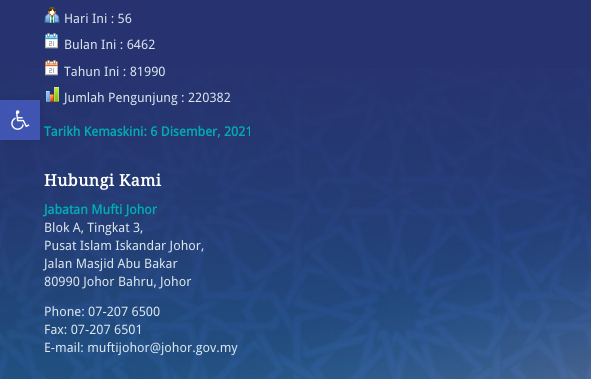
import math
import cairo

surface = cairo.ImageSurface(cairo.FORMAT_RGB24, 591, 379)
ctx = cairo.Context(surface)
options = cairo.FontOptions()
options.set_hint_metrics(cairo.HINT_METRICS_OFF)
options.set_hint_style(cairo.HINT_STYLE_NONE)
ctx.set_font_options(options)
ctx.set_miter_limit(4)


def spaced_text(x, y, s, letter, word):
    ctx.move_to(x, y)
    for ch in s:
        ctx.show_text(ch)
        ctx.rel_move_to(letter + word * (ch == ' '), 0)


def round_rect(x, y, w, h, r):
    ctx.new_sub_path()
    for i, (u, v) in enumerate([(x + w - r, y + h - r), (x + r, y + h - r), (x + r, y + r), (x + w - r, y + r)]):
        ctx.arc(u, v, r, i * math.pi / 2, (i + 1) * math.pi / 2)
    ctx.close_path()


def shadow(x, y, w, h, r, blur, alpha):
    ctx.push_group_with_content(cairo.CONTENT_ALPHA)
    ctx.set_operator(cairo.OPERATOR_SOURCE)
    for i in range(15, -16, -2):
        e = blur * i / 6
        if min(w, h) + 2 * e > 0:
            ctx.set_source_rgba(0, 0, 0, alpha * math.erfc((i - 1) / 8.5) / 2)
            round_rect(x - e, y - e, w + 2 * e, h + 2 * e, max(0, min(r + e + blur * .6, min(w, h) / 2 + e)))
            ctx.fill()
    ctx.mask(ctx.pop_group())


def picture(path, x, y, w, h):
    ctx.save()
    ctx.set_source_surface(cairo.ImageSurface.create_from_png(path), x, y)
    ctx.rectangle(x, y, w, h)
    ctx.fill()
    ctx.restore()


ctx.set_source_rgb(0.153, 0.196, 0.439)
ctx.paint()
picture("img2.png", 0, 68, 591, 311)
picture("img6.png", 46, 87, 13, 15)
ctx.set_source_rgb(0, 0, 0)
shadow(0, 100, 40, 40, 0, 5, 0.1)
ctx.set_source_rgb(0.251, 0.329, 0.698)
ctx.rectangle(0, 100, 40, 40)
ctx.fill()
picture("img1.png", 11, 110, 19, 20)
picture("img3.png", 44, 7, 16, 16)
ctx.select_font_face("Droid Sans")
ctx.set_font_size(13)
ctx.set_source_rgb(0.855, 0.898, 0.922)
ctx.move_to(64, 23)
ctx.show_text("Hari Ini : 56")
picture("img4.png", 45, 33, 13, 16)
ctx.move_to(64, 49)
ctx.show_text("Bulan Ini : 6462")
picture("img5.png", 45, 60, 13, 16)
ctx.move_to(64, 76)
ctx.show_text("Tahun Ini : 81990")
ctx.move_to(64, 102)
ctx.show_text("Jumlah Pengunjung : 220382")
ctx.select_font_face("Droid Sans", cairo.FONT_SLANT_NORMAL, cairo.FONT_WEIGHT_BOLD)
ctx.set_source_rgb(0, 0.675, 0.698)
ctx.move_to(44, 136)
ctx.show_text("Tarikh Kemaskini: 6 Disember, 2021")
ctx.select_font_face("Droid Serif", cairo.FONT_SLANT_NORMAL, cairo.FONT_WEIGHT_BOLD)
ctx.set_font_size(16)
ctx.set_source_rgb(1, 1, 1)
spaced_text(44, 186, "Hubungi Kami", 0.5, 0)
ctx.select_font_face("Droid Sans", cairo.FONT_SLANT_NORMAL, cairo.FONT_WEIGHT_BOLD)
ctx.set_font_size(13)
ctx.set_source_rgb(0, 0.675, 0.698)
ctx.move_to(44, 214)
ctx.show_text("Jabatan Mufti Johor")
ctx.select_font_face("Droid Sans")
ctx.set_source_rgb(0.855, 0.898, 0.922)
ctx.move_to(44, 232)
ctx.show_text("Blok A, Tingkat 3,")
ctx.move_to(44, 250)
ctx.show_text("Pusat Islam Iskandar Johor,")
ctx.move_to(44, 268)
ctx.show_text("Jalan Masjid Abu Bakar")
ctx.move_to(44, 286)
ctx.show_text("80990 Johor Bahru, Johor")
ctx.move_to(44, 316)
ctx.show_text("Phone: 07-207 6500")
ctx.move_to(44, 334)
ctx.show_text("Fax: 07-207 6501")
ctx.move_to(44, 352)
ctx.show_text("E-mail: muftijohor@johor.gov.my")
surface.write_to_png("page.png")
